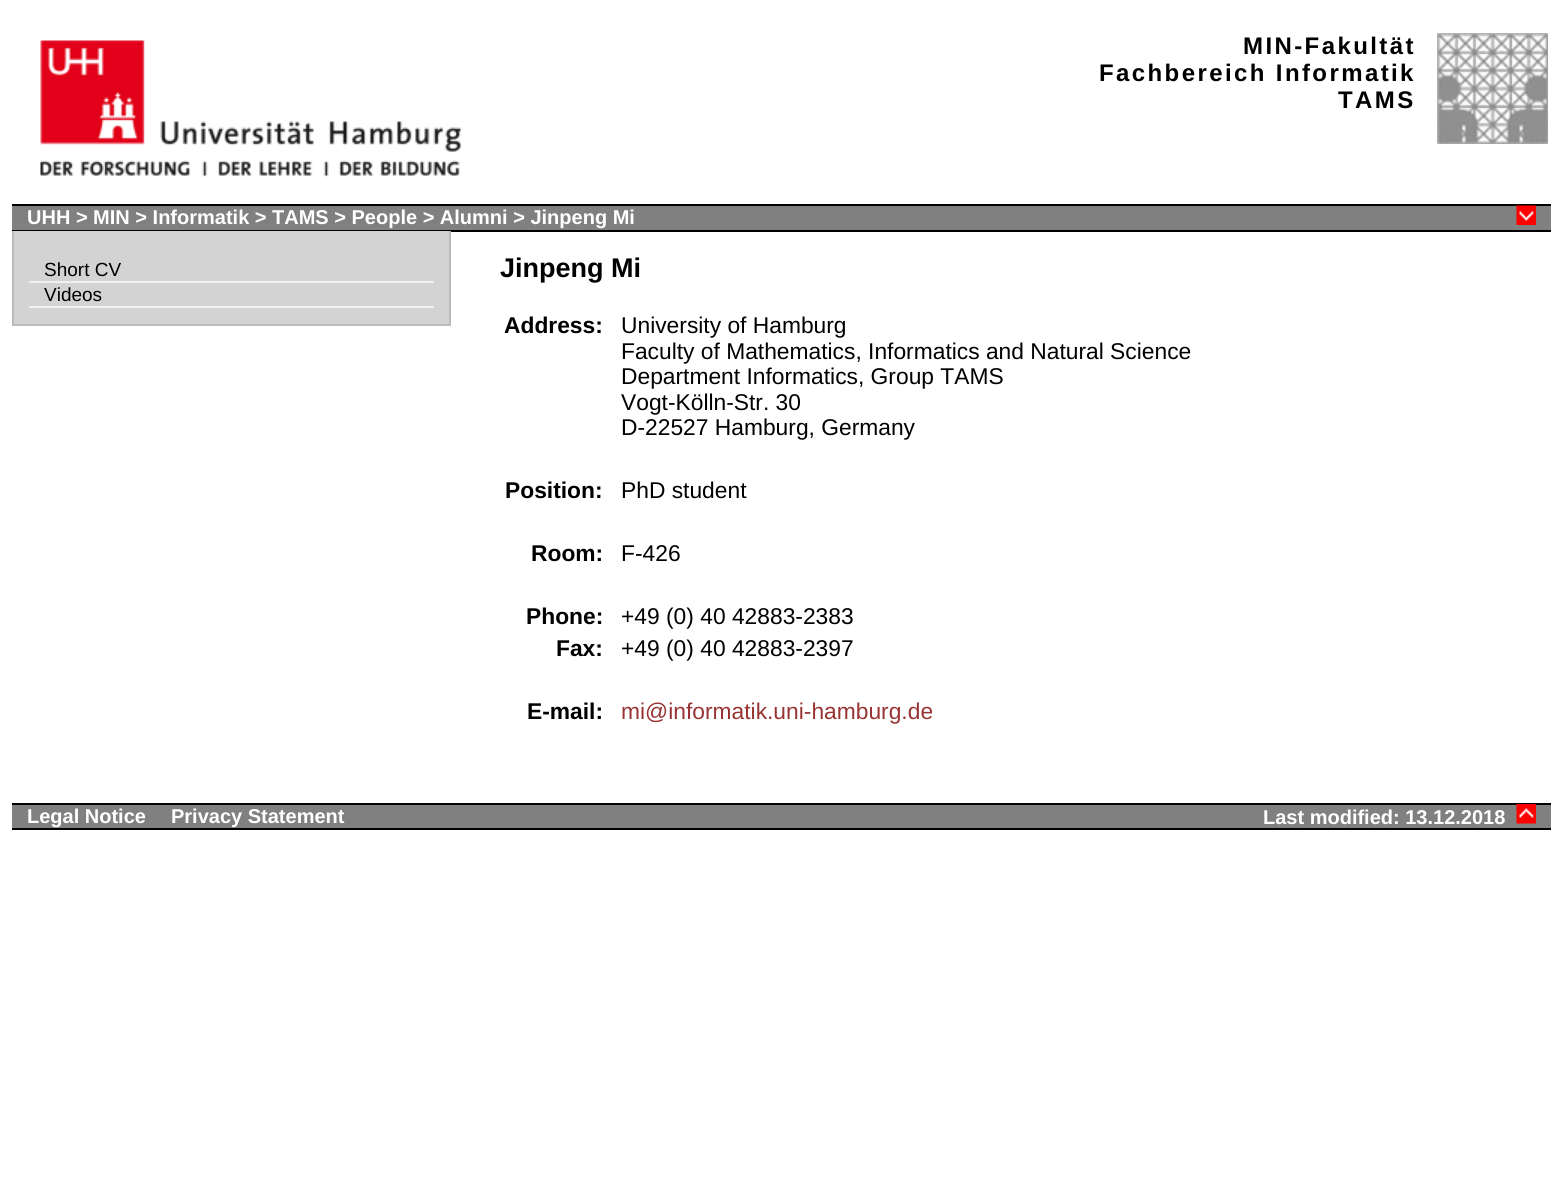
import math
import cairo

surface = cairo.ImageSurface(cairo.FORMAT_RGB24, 1562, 1187)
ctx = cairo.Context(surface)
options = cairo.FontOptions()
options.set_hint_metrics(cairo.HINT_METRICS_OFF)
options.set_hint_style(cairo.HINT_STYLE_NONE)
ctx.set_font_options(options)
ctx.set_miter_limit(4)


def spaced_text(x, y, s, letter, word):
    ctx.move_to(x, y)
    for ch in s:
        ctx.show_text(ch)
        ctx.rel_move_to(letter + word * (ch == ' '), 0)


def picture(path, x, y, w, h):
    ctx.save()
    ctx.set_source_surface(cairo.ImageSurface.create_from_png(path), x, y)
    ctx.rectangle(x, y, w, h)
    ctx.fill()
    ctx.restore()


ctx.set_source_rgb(1, 1, 1)
ctx.paint()
picture("img1.png", 40, 40, 421, 137)
ctx.select_font_face("Liberation Sans", cairo.FONT_SLANT_NORMAL, cairo.FONT_WEIGHT_BOLD)
ctx.set_font_size(24)
ctx.set_source_rgb(0, 0, 0)
spaced_text(1243, 54, "MIN-Fakultät", 2.4, 0)
spaced_text(1099, 81, "Fachbereich Informatik", 2.4, 0)
spaced_text(1338, 108, "TAMS", 2.4, 0)
picture("img2.png", 1437, 33, 111, 111)
ctx.set_source_rgb(0.502, 0.502, 0.502)
ctx.rectangle(12, 206, 1539, 24)
ctx.fill()
ctx.set_source_rgb(0, 0, 0)
ctx.rectangle(12, 204, 1539, 2)
ctx.fill()
ctx.rectangle(12, 230, 1539, 2)
ctx.fill()
ctx.set_font_size(20)
ctx.set_source_rgb(1, 1, 1)
ctx.move_to(27, 224)
ctx.show_text("UHH > MIN > Informatik > TAMS > People > Alumni > Jinpeng Mi")
picture("img3.png", 1516, 205, 20, 20)
ctx.set_source_rgb(0.827, 0.827, 0.827)
ctx.rectangle(14, 231, 435, 93)
ctx.fill()
ctx.set_source_rgb(0.733, 0.733, 0.733)
ctx.rectangle(449, 231, 2, 95)
ctx.fill()
ctx.rectangle(12, 324, 438, 2)
ctx.fill()
ctx.rectangle(12, 231, 2, 95)
ctx.fill()
ctx.set_source_rgb(0.941, 0.941, 0.941)
ctx.rectangle(29, 281, 405, 2)
ctx.fill()
ctx.select_font_face("Liberation Sans")
ctx.set_font_size(19)
ctx.set_source_rgb(0, 0, 0)
ctx.move_to(44, 276)
ctx.show_text("Short CV")
ctx.set_source_rgb(0.941, 0.941, 0.941)
ctx.rectangle(29, 306, 405, 2)
ctx.fill()
ctx.set_source_rgb(0, 0, 0)
ctx.move_to(44, 301)
ctx.show_text("Videos")
ctx.select_font_face("Liberation Sans", cairo.FONT_SLANT_NORMAL, cairo.FONT_WEIGHT_BOLD)
ctx.set_font_size(27)
ctx.move_to(500, 277)
ctx.show_text("Jinpeng Mi")
ctx.set_font_size(22.8)
ctx.move_to(504, 333)
ctx.show_text("Address:")
ctx.select_font_face("Liberation Sans")
ctx.move_to(621, 333)
ctx.show_text("University of Hamburg")
ctx.move_to(621, 359)
ctx.show_text("Faculty of Mathematics, Informatics and Natural Science")
ctx.move_to(621, 384)
ctx.show_text("Department Informatics, Group TAMS")
ctx.move_to(621, 410)
ctx.show_text("Vogt-Kölln-Str. 30")
ctx.move_to(621, 435)
ctx.show_text("D-22527 Hamburg, Germany")
ctx.select_font_face("Liberation Sans", cairo.FONT_SLANT_NORMAL, cairo.FONT_WEIGHT_BOLD)
ctx.move_to(505, 498)
ctx.show_text("Position:")
ctx.select_font_face("Liberation Sans")
ctx.move_to(621, 498)
ctx.show_text("PhD student")
ctx.select_font_face("Liberation Sans", cairo.FONT_SLANT_NORMAL, cairo.FONT_WEIGHT_BOLD)
ctx.move_to(531, 561)
ctx.show_text("Room:")
ctx.select_font_face("Liberation Sans")
ctx.move_to(621, 561)
ctx.show_text("F-426")
ctx.select_font_face("Liberation Sans", cairo.FONT_SLANT_NORMAL, cairo.FONT_WEIGHT_BOLD)
ctx.move_to(526, 624)
ctx.show_text("Phone:")
ctx.select_font_face("Liberation Sans")
ctx.move_to(621, 624)
ctx.show_text("+49 (0) 40 42883-2383")
ctx.select_font_face("Liberation Sans", cairo.FONT_SLANT_NORMAL, cairo.FONT_WEIGHT_BOLD)
ctx.move_to(556, 656)
ctx.show_text("Fax:")
ctx.select_font_face("Liberation Sans")
ctx.move_to(621, 656)
ctx.show_text("+49 (0) 40 42883-2397")
ctx.select_font_face("Liberation Sans", cairo.FONT_SLANT_NORMAL, cairo.FONT_WEIGHT_BOLD)
ctx.move_to(527, 719)
ctx.show_text("E-mail:")
ctx.select_font_face("Liberation Sans")
ctx.set_source_rgb(0.6, 0.2, 0.2)
ctx.move_to(621, 719)
ctx.show_text("mi@informatik.uni-hamburg.de")
ctx.set_source_rgb(0.502, 0.502, 0.502)
ctx.rectangle(12, 805, 1539, 23)
ctx.fill()
ctx.set_source_rgb(0, 0, 0)
ctx.rectangle(12, 803, 1539, 2)
ctx.fill()
ctx.rectangle(12, 828, 1539, 2)
ctx.fill()
ctx.select_font_face("Liberation Sans", cairo.FONT_SLANT_NORMAL, cairo.FONT_WEIGHT_BOLD)
ctx.set_font_size(20)
ctx.set_source_rgb(1, 1, 1)
ctx.move_to(27, 823)
ctx.show_text("Legal Notice")
ctx.move_to(171, 823)
ctx.show_text("Privacy Statement")
ctx.move_to(1263, 824)
ctx.show_text("Last modified: 13.12.2018")
picture("img4.png", 1516, 804, 20, 20)
surface.write_to_png("page.png")
